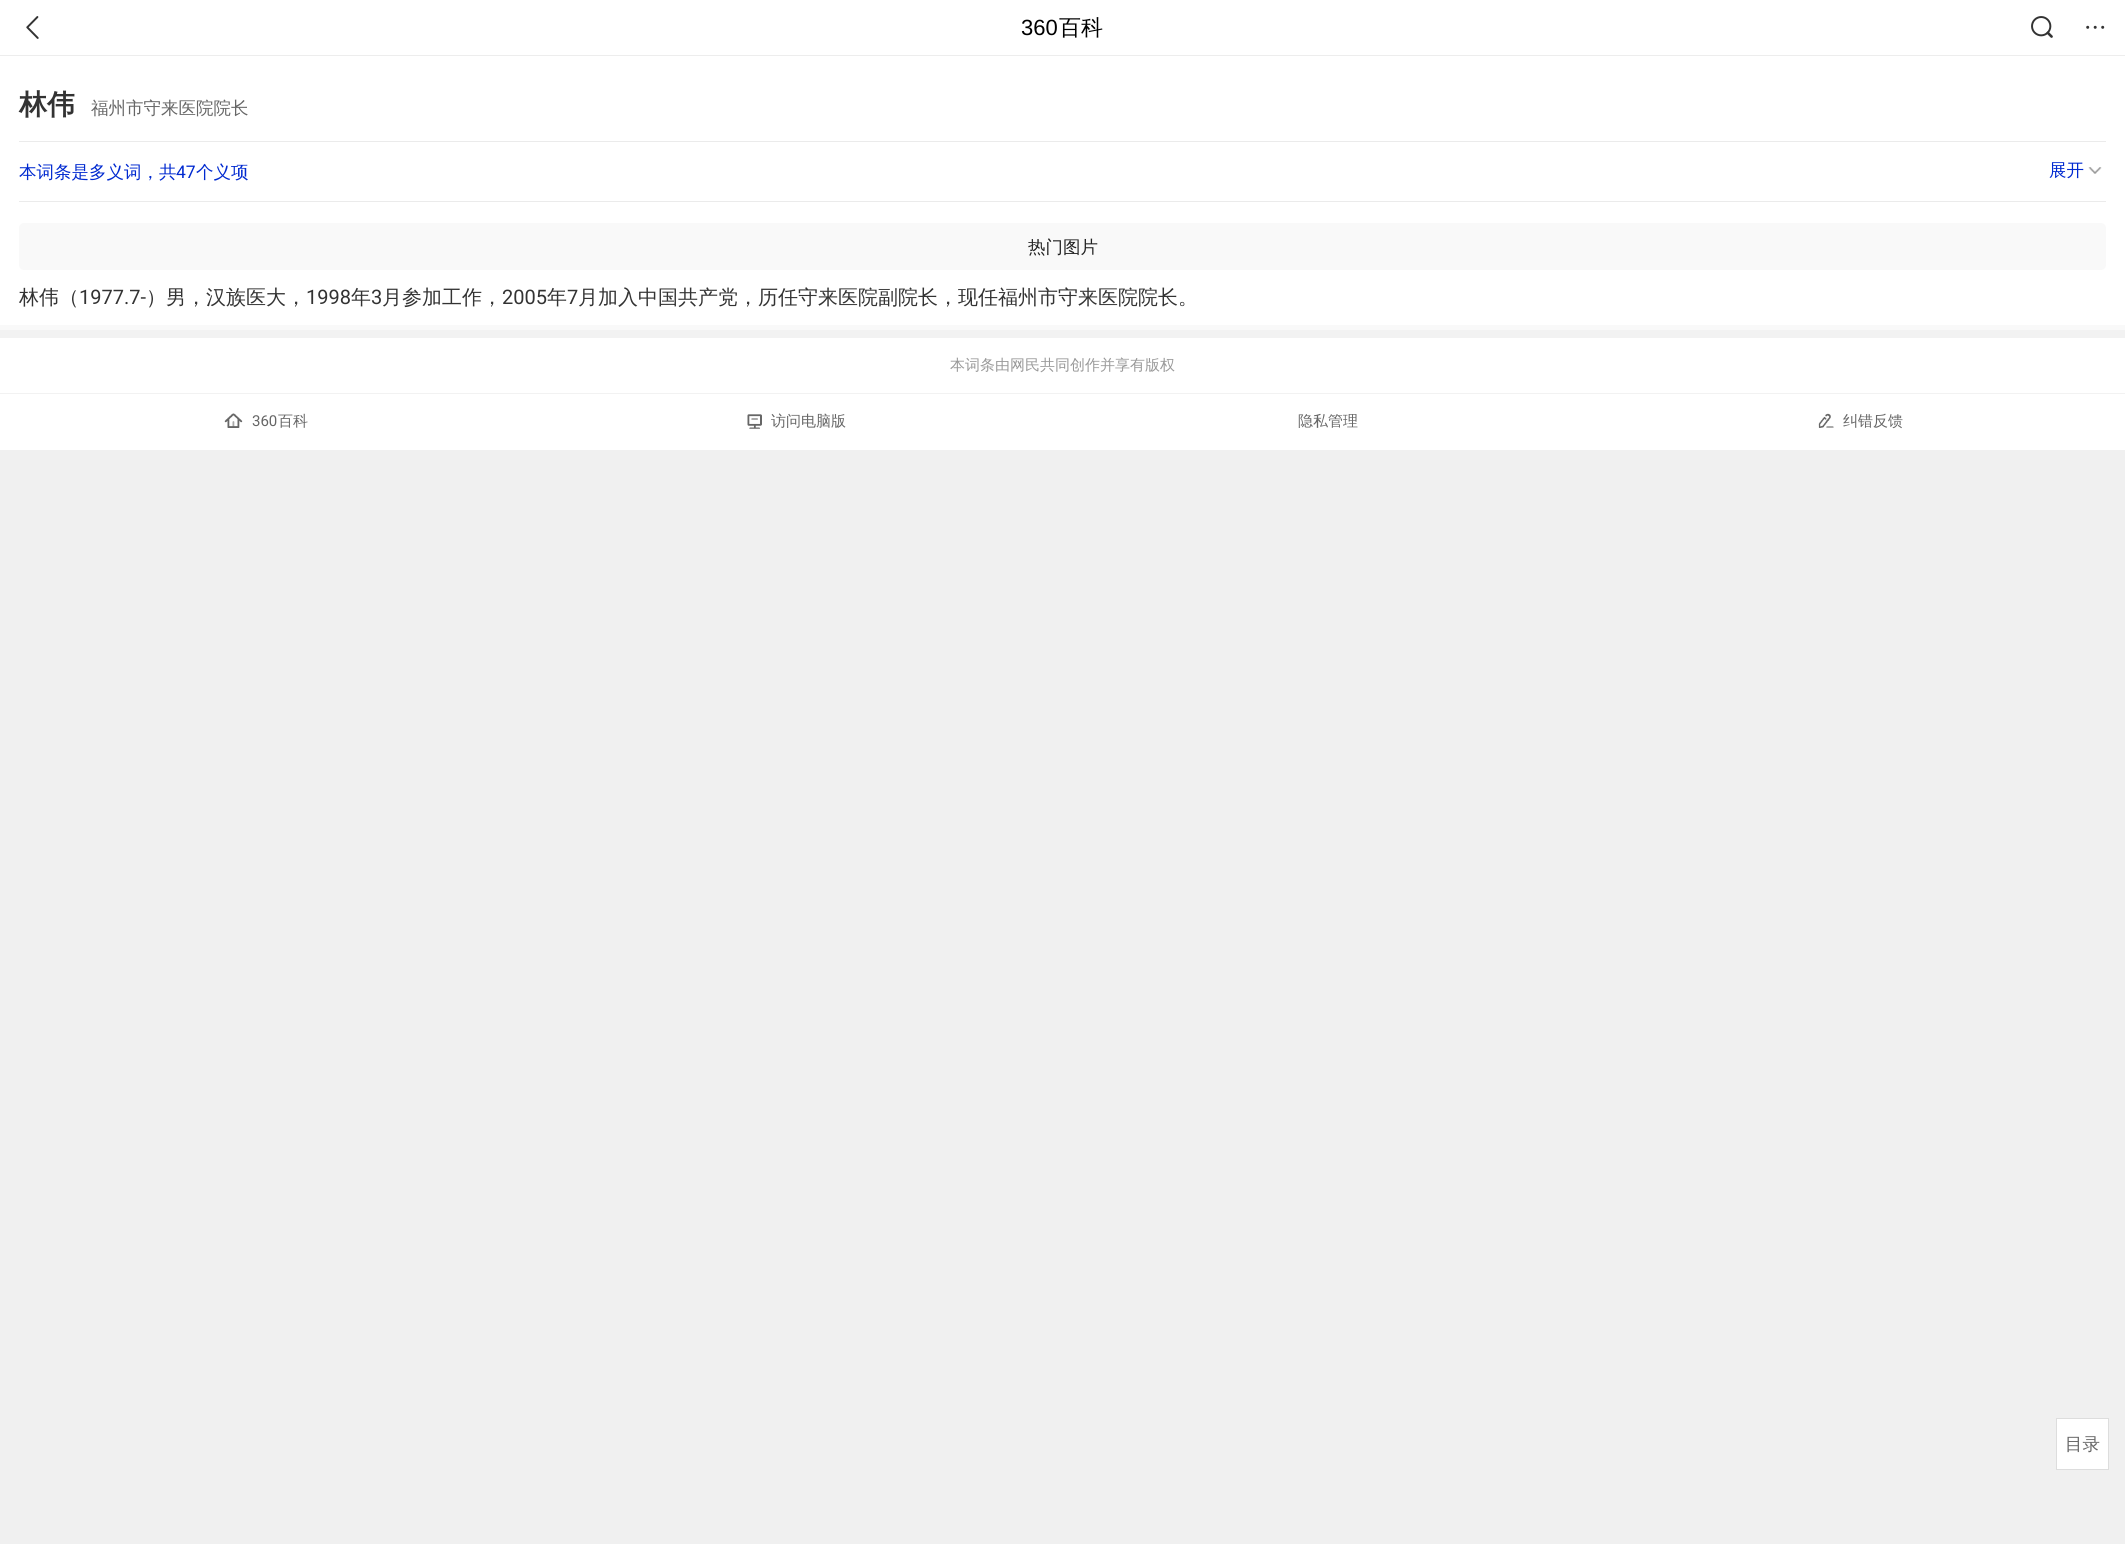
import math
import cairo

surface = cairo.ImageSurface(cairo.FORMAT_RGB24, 2125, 1544)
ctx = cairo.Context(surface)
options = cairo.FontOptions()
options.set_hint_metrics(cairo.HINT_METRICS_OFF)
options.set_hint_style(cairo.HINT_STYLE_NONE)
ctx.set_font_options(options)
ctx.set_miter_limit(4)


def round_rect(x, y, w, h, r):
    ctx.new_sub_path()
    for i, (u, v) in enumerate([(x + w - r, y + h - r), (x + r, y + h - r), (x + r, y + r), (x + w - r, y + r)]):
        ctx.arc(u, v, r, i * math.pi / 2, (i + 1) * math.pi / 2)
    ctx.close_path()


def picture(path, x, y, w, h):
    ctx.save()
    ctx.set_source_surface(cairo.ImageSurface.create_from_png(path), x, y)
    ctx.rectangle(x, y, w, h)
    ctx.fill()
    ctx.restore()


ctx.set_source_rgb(0.941, 0.941, 0.941)
ctx.paint()
ctx.set_source_rgb(1, 1, 1)
ctx.rectangle(0, 56, 2125, 394)
ctx.fill()
ctx.rectangle(0, 0, 2125, 55)
ctx.fill()
ctx.set_source_rgb(0.929, 0.929, 0.929)
ctx.rectangle(0, 55, 2125, 1)
ctx.fill()
picture("img1.png", 26, 16, 13, 23)
ctx.select_font_face("Liberation Sans")
ctx.set_font_size(22)
ctx.set_source_rgb(0, 0, 0)
ctx.move_to(1021, 35)
ctx.show_text("360")
ctx.select_font_face("WenQuanYi Zen Hei Medium")
ctx.move_to(1059, 35)
ctx.show_text("百科")
picture("img2.png", 2031, 16, 22, 22)
ctx.set_source_rgb(0.2, 0.2, 0.2)
ctx.arc(2087.7, 27.3, 1.5, 0, 2 * math.pi)
ctx.fill()
ctx.arc(2095.2, 27.3, 1.5, 0, 2 * math.pi)
ctx.fill()
ctx.arc(2102.7, 27.3, 1.5, 0, 2 * math.pi)
ctx.fill()
ctx.set_source_rgb(1, 1, 1)
ctx.rectangle(2056.5, 1418.5, 52, 51)
ctx.fill_preserve()
ctx.set_source_rgb(0.867, 0.867, 0.867)
ctx.set_line_width(1)
ctx.stroke()
ctx.set_font_size(17.5)
ctx.set_source_rgb(0.4, 0.4, 0.4)
ctx.move_to(2065, 1450)
ctx.show_text("目录")
ctx.select_font_face("WenQuanYi Zen Hei", cairo.FONT_SLANT_NORMAL, cairo.FONT_WEIGHT_BOLD)
ctx.set_font_size(28)
ctx.set_source_rgb(0.2, 0.2, 0.2)
ctx.move_to(19, 114)
ctx.show_text("林伟")
ctx.select_font_face("WenQuanYi Zen Hei Medium")
ctx.set_font_size(17.5)
ctx.set_source_rgb(0.4, 0.4, 0.4)
ctx.move_to(91, 114)
ctx.show_text("福州市守来医院院长")
ctx.set_source_rgb(0.918, 0.918, 0.918)
ctx.rectangle(19, 141, 2087, 1)
ctx.fill()
ctx.set_source_rgb(0, 0.161, 0.816)
ctx.move_to(19, 178)
ctx.show_text("本词条是多义词，共")
ctx.select_font_face("Roboto")
ctx.move_to(176, 178)
ctx.show_text("47")
ctx.select_font_face("WenQuanYi Zen Hei Medium")
ctx.move_to(196, 178)
ctx.show_text("个义项")
ctx.move_to(2049, 176)
ctx.show_text("展开")
picture("img3.png", 2088, 167, 14, 7)
ctx.set_source_rgb(0.918, 0.918, 0.918)
ctx.rectangle(19, 201, 2087, 1)
ctx.fill()
ctx.set_source_rgb(0.973, 0.973, 0.973)
round_rect(19, 223, 2087, 47, 5)
ctx.fill()
ctx.set_source_rgb(0.133, 0.133, 0.133)
ctx.move_to(1028, 253)
ctx.show_text("热门图片")
ctx.set_font_size(20)
ctx.set_source_rgb(0.2, 0.2, 0.2)
ctx.move_to(19, 304)
ctx.show_text("林伟（")
ctx.select_font_face("Roboto")
ctx.move_to(79, 304)
ctx.show_text("1977.7-")
ctx.select_font_face("WenQuanYi Zen Hei Medium")
ctx.move_to(146, 304)
ctx.show_text("）男，汉族医大，")
ctx.select_font_face("Roboto")
ctx.move_to(306, 304)
ctx.show_text("1998")
ctx.select_font_face("WenQuanYi Zen Hei Medium")
ctx.move_to(351, 304)
ctx.show_text("年")
ctx.select_font_face("Roboto")
ctx.move_to(371, 304)
ctx.show_text("3")
ctx.select_font_face("WenQuanYi Zen Hei Medium")
ctx.move_to(382, 304)
ctx.show_text("月参加工作，")
ctx.select_font_face("Roboto")
ctx.move_to(502, 304)
ctx.show_text("2005")
ctx.select_font_face("WenQuanYi Zen Hei Medium")
ctx.move_to(547, 304)
ctx.show_text("年")
ctx.select_font_face("Roboto")
ctx.move_to(567, 304)
ctx.show_text("7")
ctx.select_font_face("WenQuanYi Zen Hei Medium")
ctx.move_to(578, 304)
ctx.show_text("月加入中国共产党，历任守来医院副院长，现任福州市守来医院院长。")
ctx.set_source_rgb(0.973, 0.973, 0.973)
ctx.rectangle(0, 325, 2125, 5)
ctx.fill()
ctx.set_source_rgb(0.949, 0.949, 0.949)
ctx.rectangle(0, 330, 2125, 8)
ctx.fill()
ctx.set_font_size(15)
ctx.set_source_rgb(0.6, 0.6, 0.6)
ctx.move_to(950, 370)
ctx.show_text("本词条由网民共同创作并享有版权")
ctx.set_source_rgb(0.949, 0.949, 0.949)
ctx.rectangle(0, 393, 2125, 1)
ctx.fill()
picture("img4.png", 224, 413, 19, 15)
ctx.select_font_face("Roboto")
ctx.set_source_rgb(0.4, 0.4, 0.4)
ctx.move_to(252, 426)
ctx.show_text("360")
ctx.select_font_face("WenQuanYi Zen Hei Medium")
ctx.move_to(278, 426)
ctx.show_text("百科")
picture("img5.png", 747, 414, 15, 15)
ctx.move_to(771, 426)
ctx.show_text("访问电脑版")
ctx.move_to(1298, 426)
ctx.show_text("隐私管理")
picture("img6.png", 1818, 413, 16, 15)
ctx.move_to(1843, 426)
ctx.show_text("纠错反馈")
surface.write_to_png("page.png")
